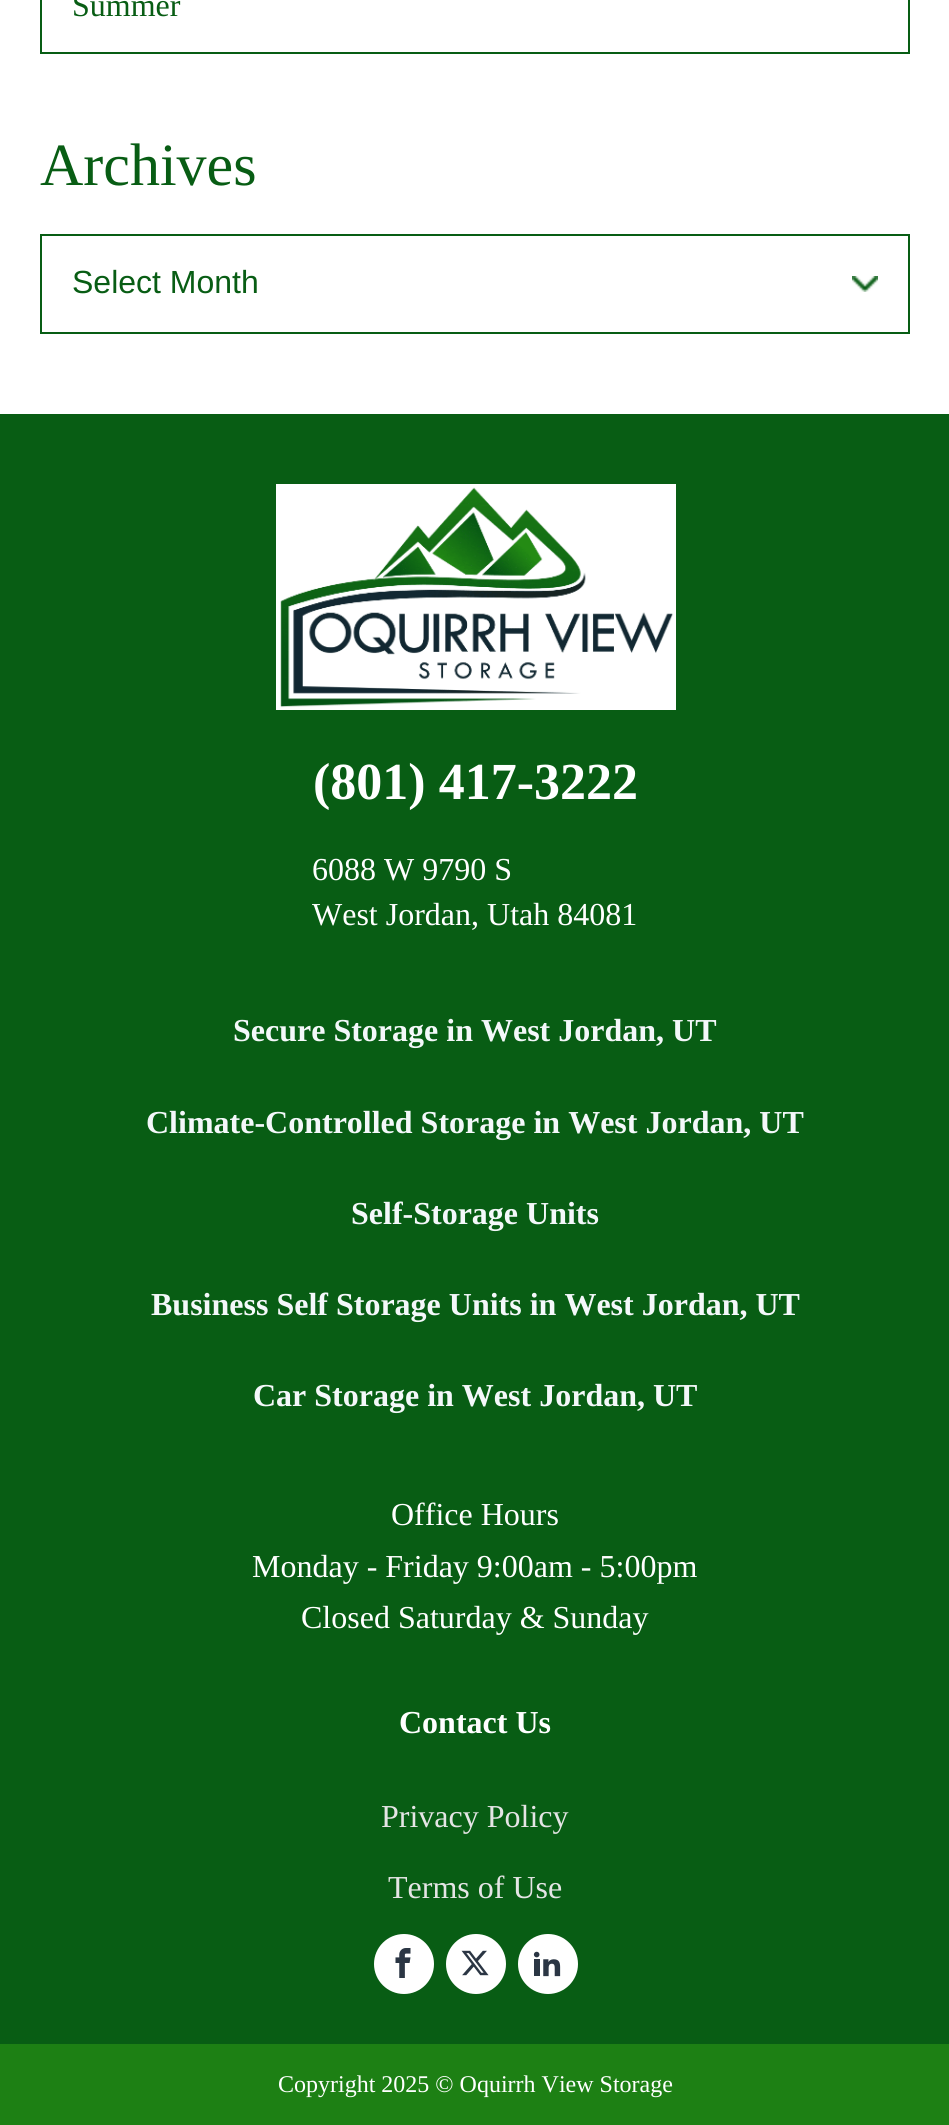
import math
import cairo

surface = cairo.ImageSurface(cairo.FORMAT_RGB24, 949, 2125)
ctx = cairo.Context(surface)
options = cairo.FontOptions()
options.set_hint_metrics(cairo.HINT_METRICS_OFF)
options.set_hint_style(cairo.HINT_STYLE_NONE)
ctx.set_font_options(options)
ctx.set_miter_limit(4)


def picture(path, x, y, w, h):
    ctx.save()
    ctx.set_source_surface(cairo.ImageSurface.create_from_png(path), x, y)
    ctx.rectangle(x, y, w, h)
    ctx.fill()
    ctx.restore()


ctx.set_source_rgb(1, 1, 1)
ctx.paint()
ctx.rectangle(41, -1, 868, 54)
ctx.set_source_rgb(0.035, 0.365, 0.082)
ctx.stroke()
ctx.select_font_face("Liberation Serif")
ctx.set_font_size(32)
ctx.move_to(72, 16)
ctx.show_text("Summer")
ctx.set_font_size(60)
ctx.move_to(40, 185)
ctx.show_text("Archives")
picture("img1.png", 852, 276, 26, 16)
ctx.rectangle(41, 235, 868, 98)
ctx.stroke()
ctx.select_font_face("Liberation Sans")
ctx.set_font_size(32)
ctx.move_to(72, 293)
ctx.show_text("Select Month")
ctx.rectangle(0, 414, 949, 1630)
ctx.fill()
picture("img2.png", 276, 484, 400, 226)
ctx.select_font_face("Liberation Serif", cairo.FONT_SLANT_NORMAL, cairo.FONT_WEIGHT_BOLD)
ctx.set_font_size(52)
ctx.set_source_rgb(1, 1, 1)
ctx.move_to(313, 799)
ctx.show_text("(801) 417-3222")
ctx.select_font_face("Liberation Serif")
ctx.set_font_size(32)
ctx.move_to(312, 880)
ctx.show_text("6088 W 9790 S")
ctx.move_to(312, 925)
ctx.show_text("West Jordan, Utah 84081")
ctx.select_font_face("Liberation Serif", cairo.FONT_SLANT_NORMAL, cairo.FONT_WEIGHT_BOLD)
ctx.set_source_rgb(0.957, 0.969, 0.98)
ctx.move_to(233, 1041)
ctx.show_text("Secure Storage in West Jordan, UT")
ctx.move_to(146, 1133)
ctx.show_text("Climate-Controlled Storage in West Jordan, UT")
ctx.move_to(351, 1224)
ctx.show_text("Self-Storage Units")
ctx.move_to(151, 1315)
ctx.show_text("Business Self Storage Units in West Jordan, UT")
ctx.move_to(253, 1406)
ctx.show_text("Car Storage in West Jordan, UT")
ctx.select_font_face("Liberation Serif")
ctx.set_source_rgb(1, 1, 1)
ctx.move_to(391, 1525)
ctx.show_text("Office Hours")
ctx.move_to(252, 1577)
ctx.show_text("Monday - Friday 9:00am - 5:00pm")
ctx.move_to(301, 1628)
ctx.show_text("Closed Saturday & Sunday")
ctx.select_font_face("Liberation Serif", cairo.FONT_SLANT_NORMAL, cairo.FONT_WEIGHT_BOLD)
ctx.move_to(399, 1733)
ctx.show_text("Contact Us")
ctx.select_font_face("Liberation Serif")
ctx.set_source_rgb(0.898, 0.898, 0.898)
ctx.move_to(381, 1827)
ctx.show_text("Privacy Policy")
ctx.move_to(388, 1898)
ctx.show_text("Terms of Use")
ctx.set_source_rgb(1, 1, 1)
ctx.new_path()
ctx.arc(404, 1964, 30, 0, 2 * math.pi)
ctx.fill()
picture("img3.png", 395, 1948, 16, 30)
ctx.arc(476, 1964, 30, 0, 2 * math.pi)
ctx.fill()
picture("img4.png", 461, 1950, 28, 26)
ctx.arc(548, 1964, 30, 0, 2 * math.pi)
ctx.fill()
picture("img5.png", 533, 1951, 28, 26)
ctx.set_source_rgb(0.114, 0.502, 0.082)
ctx.rectangle(0, 2044, 949, 81)
ctx.fill()
ctx.set_font_size(24)
ctx.set_source_rgb(1, 1, 1)
ctx.move_to(278, 2092)
ctx.show_text("Copyright 2025 © Oquirrh View Storage")
surface.write_to_png("page.png")
